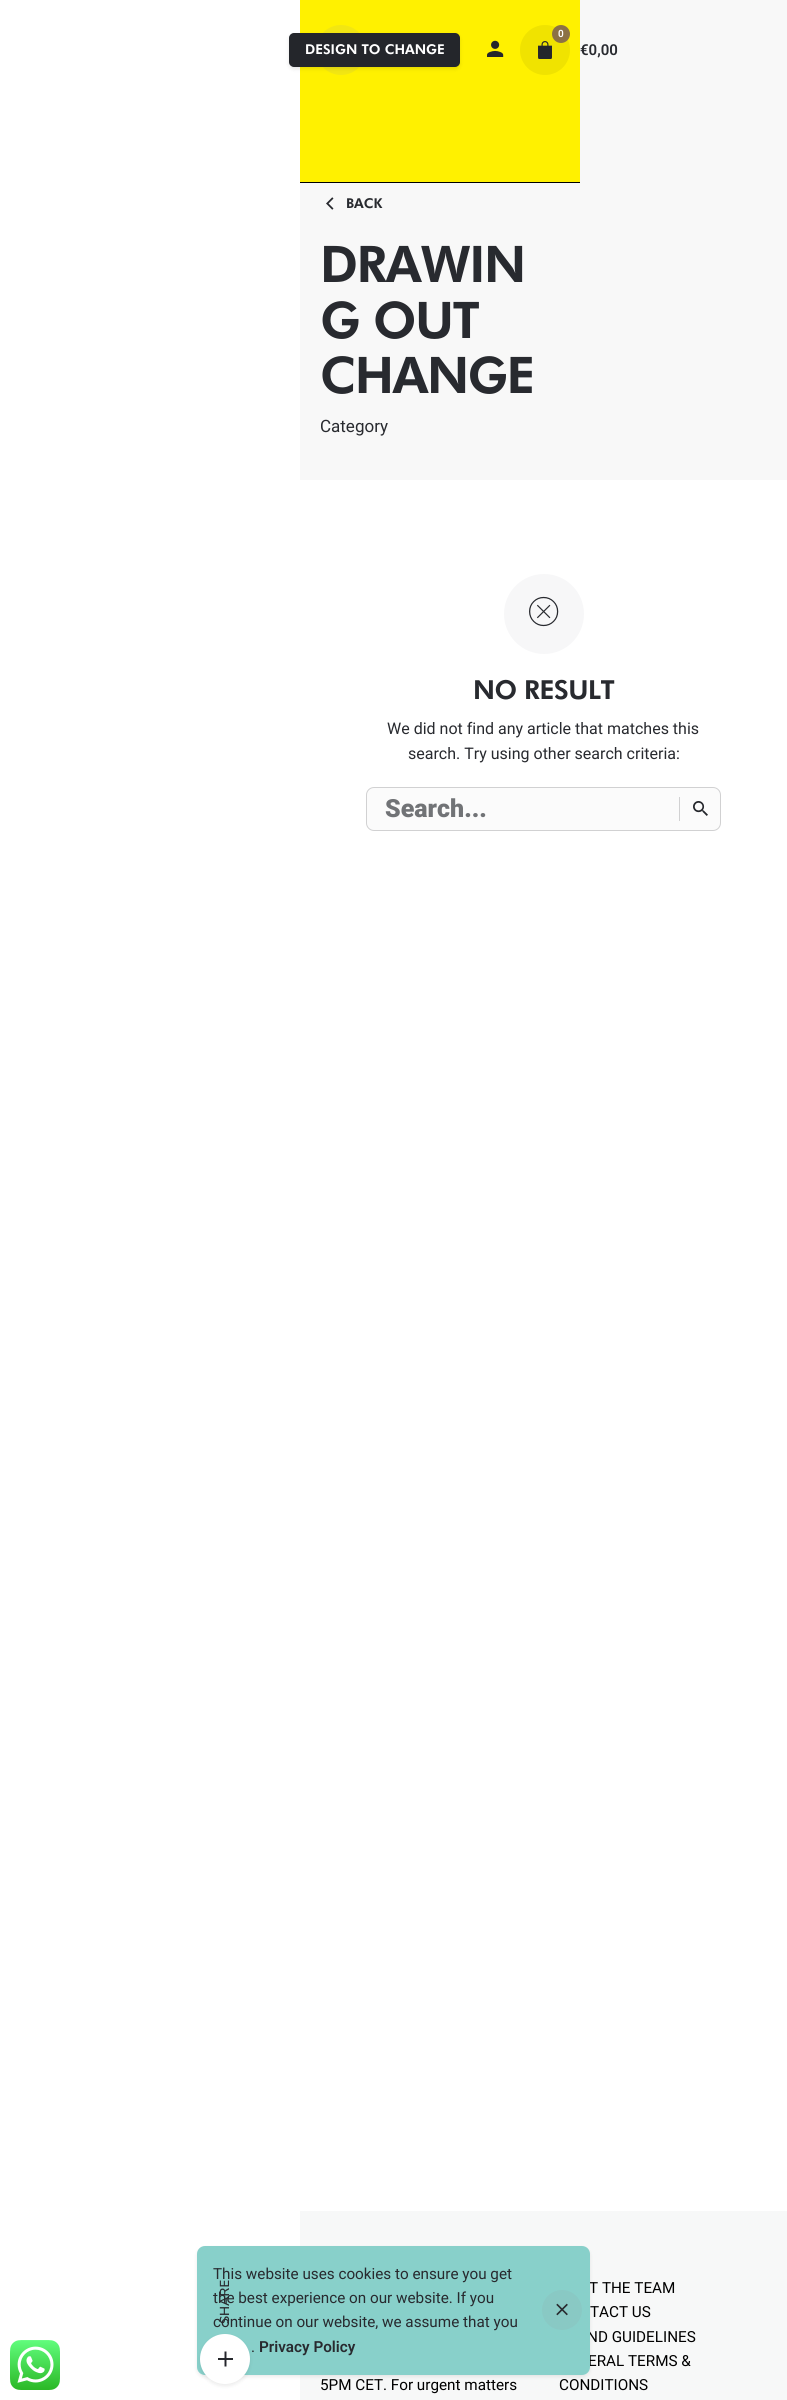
import math
import cairo

surface = cairo.ImageSurface(cairo.FORMAT_RGB24, 787, 2400)
ctx = cairo.Context(surface)
options = cairo.FontOptions()
options.set_hint_metrics(cairo.HINT_METRICS_OFF)
options.set_hint_style(cairo.HINT_STYLE_NONE)
ctx.set_font_options(options)
ctx.set_miter_limit(4)


def spaced_text(x, y, s, letter, word):
    ctx.move_to(x, y)
    for ch in s:
        ctx.show_text(ch)
        ctx.rel_move_to(letter + word * (ch == ' '), 0)


def round_rect(x, y, w, h, r):
    ctx.new_sub_path()
    for i, (u, v) in enumerate([(x + w - r, y + h - r), (x + r, y + h - r), (x + r, y + r), (x + w - r, y + r)]):
        ctx.arc(u, v, r, i * math.pi / 2, (i + 1) * math.pi / 2)
    ctx.close_path()


def shadow(x, y, w, h, r, blur, alpha):
    ctx.push_group_with_content(cairo.CONTENT_ALPHA)
    ctx.set_operator(cairo.OPERATOR_SOURCE)
    for i in range(15, -16, -2):
        e = blur * i / 6
        if min(w, h) + 2 * e > 0:
            ctx.set_source_rgba(0, 0, 0, alpha * math.erfc((i - 1) / 8.5) / 2)
            round_rect(x - e, y - e, w + 2 * e, h + 2 * e, max(0, min(r + e + blur * .6, min(w, h) / 2 + e)))
            ctx.fill()
    ctx.mask(ctx.pop_group())


def picture(path, x, y, w, h):
    ctx.save()
    ctx.set_source_surface(cairo.ImageSurface.create_from_png(path), x, y)
    ctx.rectangle(x, y, w, h)
    ctx.fill()
    ctx.restore()


ctx.set_source_rgb(1, 1, 1)
ctx.paint()
ctx.set_source_rgb(0.969, 0.969, 0.969)
ctx.rectangle(300, 0, 487, 480)
ctx.fill()
ctx.set_source_rgb(1, 0.945, 0)
ctx.rectangle(300, 0, 280, 182)
ctx.fill()
ctx.set_source_rgb(0, 0, 0)
ctx.rectangle(300, 182, 280, 1)
ctx.fill()
ctx.set_source_rgb(0.949, 0.902, 0.071)
ctx.arc(341, 50, 25, 0, 2 * math.pi)
ctx.fill()
ctx.set_source_rgb(0, 0, 0)
shadow(289, 35, 171, 34, 5, 2, 0.1)
ctx.set_source_rgb(0.141, 0.149, 0.169)
round_rect(290, 34, 169, 32, 4)
ctx.fill_preserve()
ctx.stroke()
ctx.select_font_face("Futura Black")
ctx.set_font_size(13.6)
ctx.set_source_rgb(1, 1, 1)
ctx.move_to(305, 54)
ctx.show_text("DESIGN TO CHANGE")
picture("img1.png", 487, 40, 17, 17)
ctx.set_source_rgb(0.941, 0.89, 0)
ctx.arc(545, 50, 25, 0, 2 * math.pi)
ctx.fill()
ctx.set_source_rgb(0.549, 0.443, 0.271)
ctx.arc(561, 34, 9, 0, 2 * math.pi)
ctx.fill()
ctx.select_font_face("Roboto SemiBold")
ctx.set_font_size(10)
ctx.set_source_rgb(1, 1, 1)
ctx.move_to(558, 37)
ctx.show_text("0")
picture("img2.png", 538, 41, 14, 18)
ctx.set_font_size(15)
ctx.set_source_rgb(0.157, 0.165, 0.184)
ctx.move_to(580, 55)
ctx.show_text("€0,00")
picture("img3.png", 326, 197, 8, 13)
ctx.select_font_face("Futura Black")
ctx.set_font_size(13.6)
ctx.move_to(346, 208)
ctx.show_text("BACK")
ctx.set_font_size(50.5)
spaced_text(320, 282, "DRAWIN", -1.5, 0)
spaced_text(320, 338, "G OUT", -1.5, 0)
spaced_text(320, 393, "CHANGE", -1.5, 0)
ctx.select_font_face("Roboto")
ctx.set_font_size(17)
ctx.move_to(320, 432)
ctx.show_text("Category")
ctx.set_source_rgb(0.965, 0.965, 0.969)
ctx.new_path()
ctx.arc(544, 614, 40, 0, 2 * math.pi)
ctx.fill()
picture("img4.png", 529, 596, 30, 31)
ctx.select_font_face("Futura Black")
ctx.set_font_size(26.25)
ctx.set_source_rgb(0.157, 0.165, 0.184)
spaced_text(473, 699, "NO RESULT", -0.5, 0)
ctx.select_font_face("Roboto")
ctx.set_font_size(16)
ctx.move_to(387, 734)
ctx.show_text("We did not find any article that matches this")
ctx.move_to(408, 759)
ctx.show_text("search. Try using other search criteria:")
ctx.set_source_rgb(0.984, 0.984, 0.984)
round_rect(366.5, 787.5, 354, 43, 7.5)
ctx.fill_preserve()
ctx.set_source_rgb(0.82, 0.82, 0.824)
ctx.set_line_width(1)
ctx.stroke()
ctx.select_font_face("Roboto Black")
ctx.set_font_size(25)
ctx.set_source_rgb(0.443, 0.451, 0.463)
ctx.move_to(385, 817)
ctx.show_text("Search...")
ctx.set_source_rgb(0.82, 0.82, 0.824)
ctx.rectangle(679, 797, 1, 24)
ctx.fill()
picture("img5.png", 693, 801, 15, 15)
ctx.set_source_rgb(0.965, 0.969, 0.969)
ctx.rectangle(300, 2211, 487, 189)
ctx.fill()
ctx.set_source_rgb(0, 0, 0)
shadow(197, 2248, 393, 129, 8, 2, 0.08)
ctx.select_font_face("Roboto")
ctx.set_font_size(15.25)
ctx.set_source_rgb(0, 0, 0)
ctx.move_to(589, 2293)
ctx.show_text("T THE TEAM")
ctx.move_to(587, 2342)
ctx.show_text("ND GUIDELINES")
ctx.move_to(588, 2366)
ctx.show_text("ERAL TERMS &")
ctx.set_source_rgb(0.533, 0.816, 0.792)
round_rect(197, 2246, 393, 129, 8)
ctx.fill()
ctx.set_source_rgb(0.157, 0.165, 0.184)
ctx.move_to(213, 2279)
ctx.show_text("This website uses cookies to ensure you get")
ctx.move_to(213, 2303)
ctx.show_text("the best experience on our website. If you")
ctx.move_to(213, 2327)
ctx.show_text("continue on our website, we assume that you")
ctx.move_to(251, 2352)
ctx.show_text(".")
ctx.select_font_face("Roboto SemiBold")
ctx.move_to(259, 2352)
ctx.show_text("Privacy Policy")
ctx.set_source_rgb(0.537, 0.788, 0.769)
ctx.new_path()
ctx.arc(562, 2310, 20, 0, 2 * math.pi)
ctx.fill()
picture("img6.png", 556, 2303, 12, 13)
ctx.select_font_face("Roboto")
ctx.set_source_rgb(0, 0, 0)
ctx.move_to(320, 2390)
ctx.show_text("5PM CET. For urgent matters")
ctx.move_to(590, 2317)
ctx.show_text("TACT US")
ctx.move_to(559, 2390)
ctx.show_text("CONDITIONS")
ctx.select_font_face("Nunito Sans SemiBold")
ctx.set_font_size(13)
ctx.set_source_rgb(0.157, 0.165, 0.184)
ctx.save()
ctx.translate(229, 2324)
ctx.rotate(-90 * math.pi / 180)
ctx.move_to(0, 0)
ctx.show_text("SHARE")
ctx.restore()
ctx.set_source_rgb(0, 0, 0)
shadow(200, 2336, 50, 50, 25, 2, 0.08)
ctx.set_source_rgb(1, 1, 1)
ctx.arc(225, 2359, 25, 0, 2 * math.pi)
ctx.fill()
picture("img7.png", 218, 2351, 15, 16)
picture("img8.png", 10, 2340, 50, 50)
surface.write_to_png("page.png")
